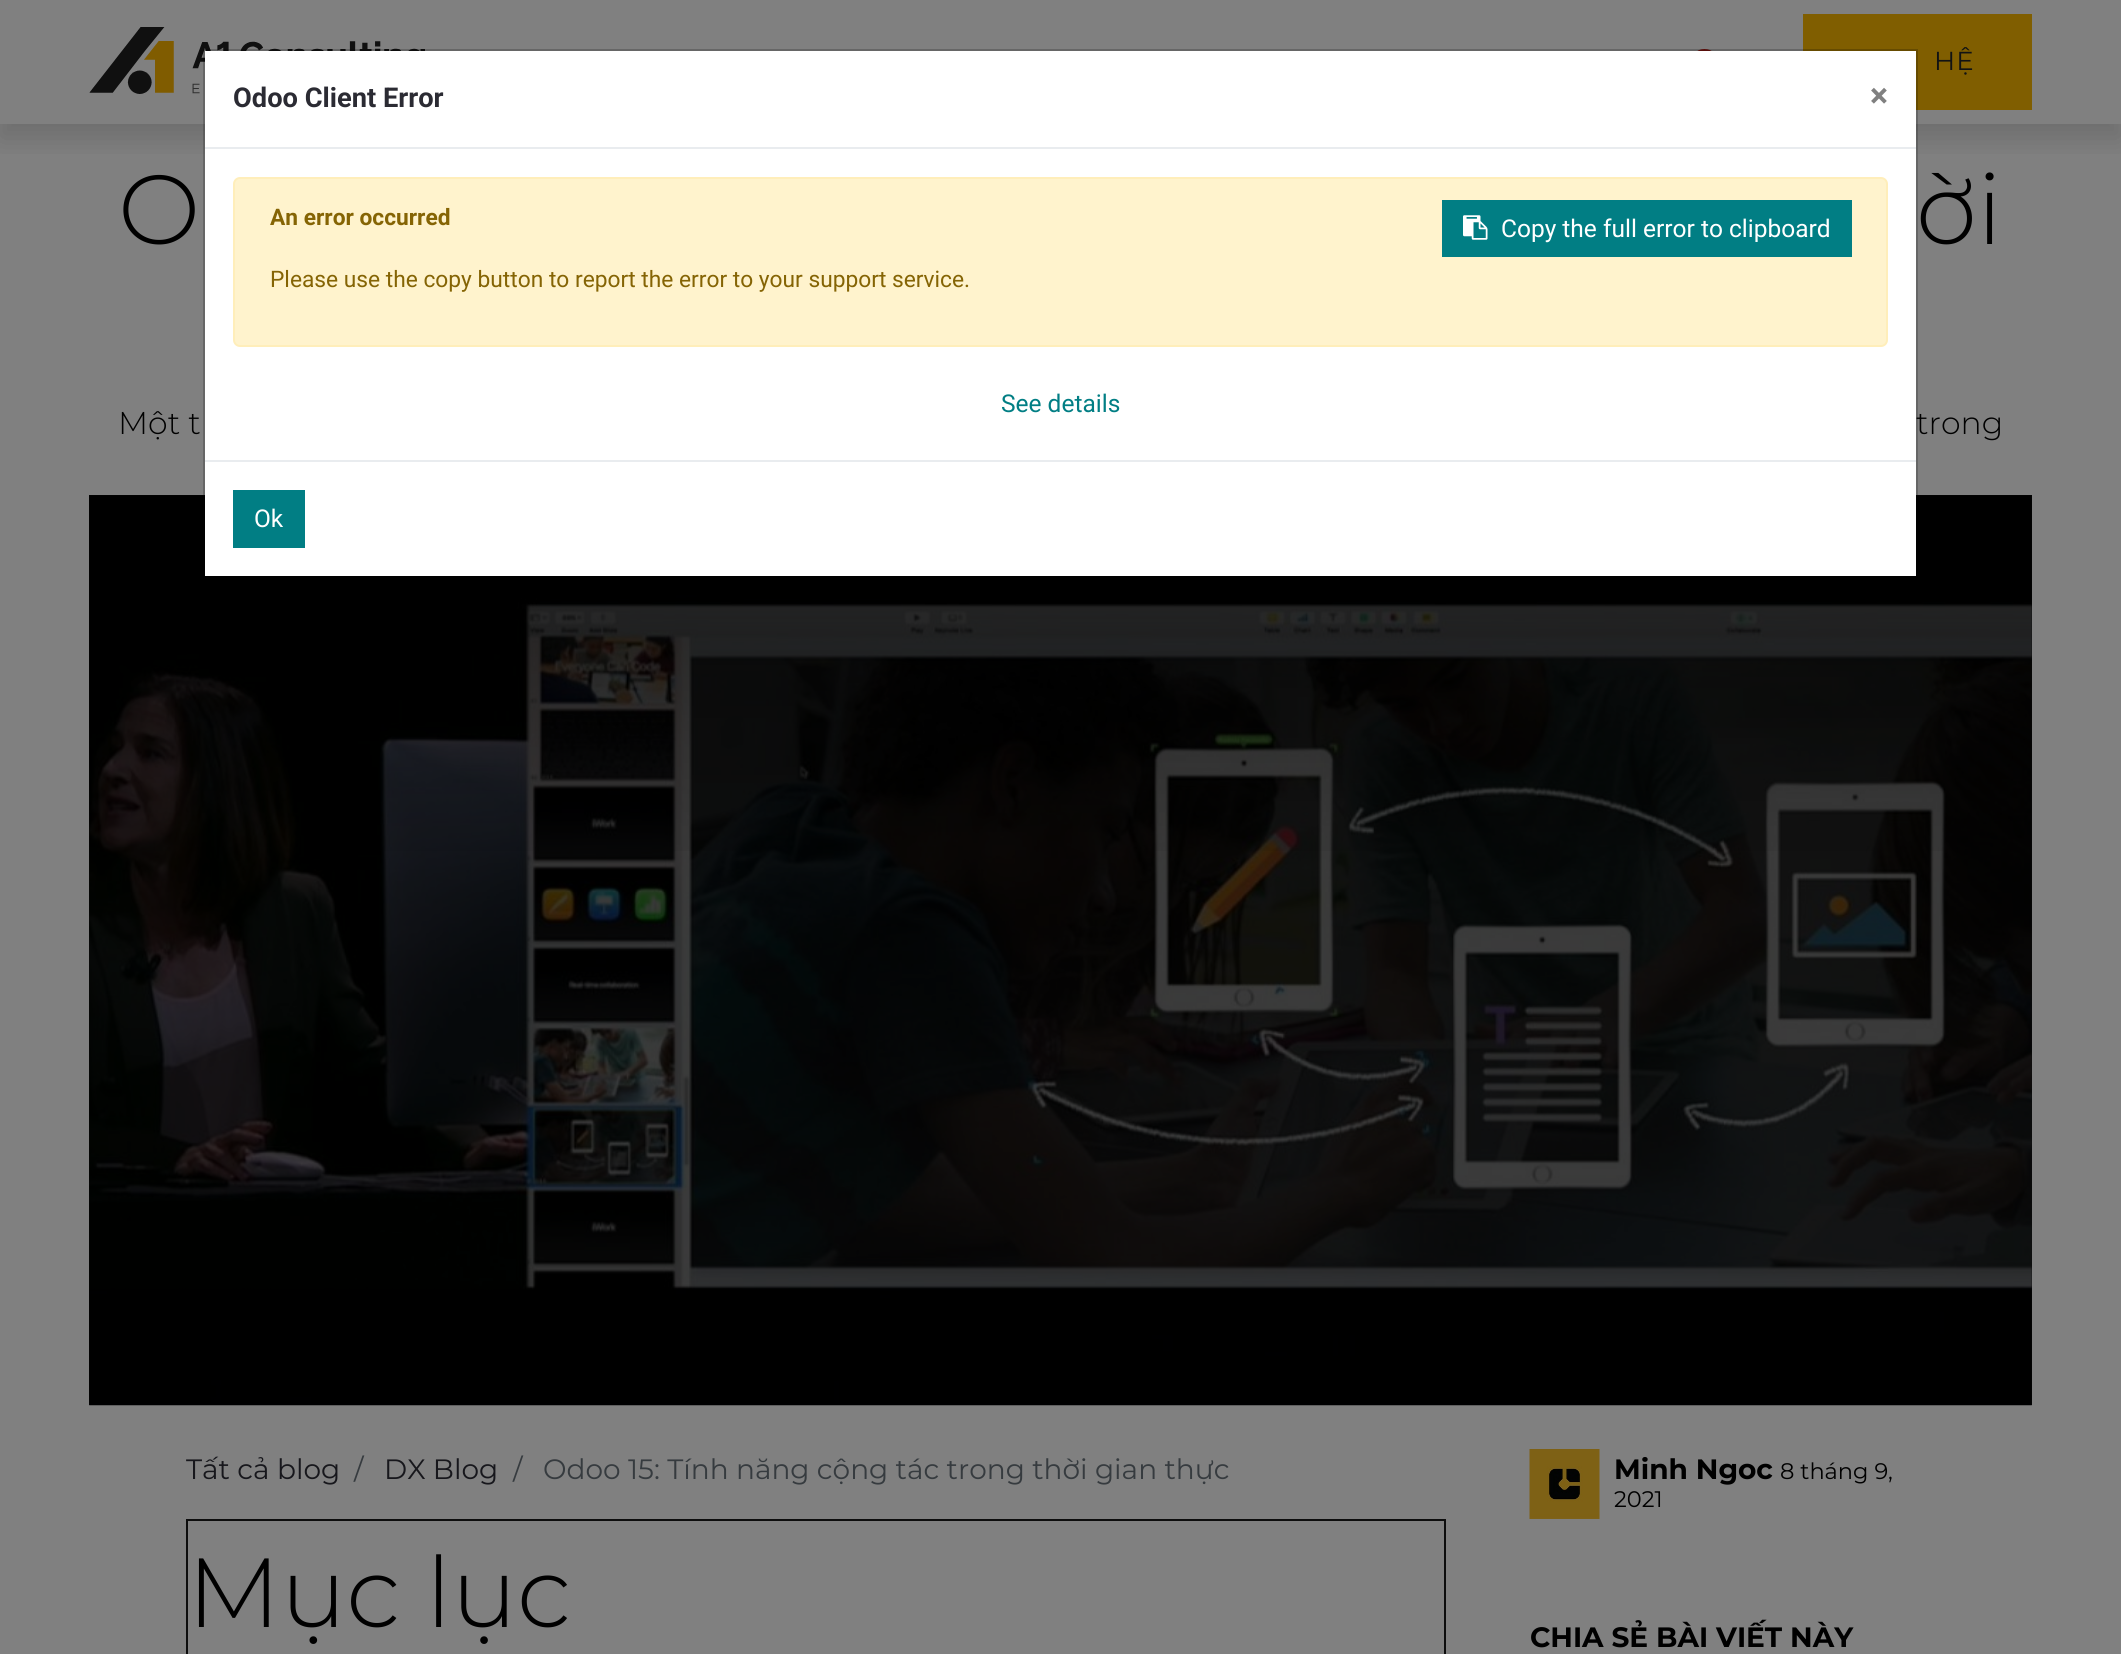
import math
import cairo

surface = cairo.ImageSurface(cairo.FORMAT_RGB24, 2121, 1654)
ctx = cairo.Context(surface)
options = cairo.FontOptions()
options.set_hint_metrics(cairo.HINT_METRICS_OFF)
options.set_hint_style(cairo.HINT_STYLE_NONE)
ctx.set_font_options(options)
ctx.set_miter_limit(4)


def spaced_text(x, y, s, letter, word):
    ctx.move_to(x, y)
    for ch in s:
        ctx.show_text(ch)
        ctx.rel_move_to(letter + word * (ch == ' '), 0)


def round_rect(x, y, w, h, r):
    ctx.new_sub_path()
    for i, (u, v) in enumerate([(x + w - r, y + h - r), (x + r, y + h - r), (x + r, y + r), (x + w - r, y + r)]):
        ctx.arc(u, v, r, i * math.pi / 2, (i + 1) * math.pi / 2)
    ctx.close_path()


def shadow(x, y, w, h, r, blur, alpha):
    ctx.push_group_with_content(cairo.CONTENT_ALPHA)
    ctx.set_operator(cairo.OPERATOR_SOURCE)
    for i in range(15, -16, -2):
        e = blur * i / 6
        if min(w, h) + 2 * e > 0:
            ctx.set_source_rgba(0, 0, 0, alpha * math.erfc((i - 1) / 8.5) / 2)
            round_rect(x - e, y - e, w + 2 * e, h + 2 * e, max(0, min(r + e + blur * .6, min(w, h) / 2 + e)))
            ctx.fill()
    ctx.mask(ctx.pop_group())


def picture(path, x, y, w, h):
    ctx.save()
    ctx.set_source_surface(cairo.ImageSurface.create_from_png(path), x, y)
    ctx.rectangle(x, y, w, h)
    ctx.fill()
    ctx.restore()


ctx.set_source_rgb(0.502, 0.502, 0.502)
ctx.paint()
ctx.save()
ctx.rectangle(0, 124, 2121, 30)
ctx.clip()
ctx.set_source_rgb(0, 0, 0)
shadow(0, 14, 2121, 124, 0, 14, 0.15)
ctx.restore()
picture("img1.png", 89, 27, 336, 67)
picture("img2.png", 1697, 49, 15, 2)
ctx.set_source_rgb(0.502, 0.369, 0)
ctx.rectangle(1803, 14, 229, 96)
ctx.fill()
ctx.select_font_face("Montserrat")
ctx.set_font_size(26)
ctx.set_source_rgb(0.067, 0.075, 0.082)
spaced_text(1934, 70, "HỆ", 1, 0)
ctx.select_font_face("Montserrat Light")
ctx.set_font_size(98)
ctx.set_source_rgb(0, 0, 0)
ctx.move_to(118, 244)
ctx.show_text("O")
ctx.move_to(1916, 244)
ctx.show_text("ời")
ctx.set_font_size(31.5)
ctx.move_to(118, 434)
ctx.show_text("Một t")
ctx.move_to(1916, 434)
ctx.show_text("trong")
ctx.set_source_rgb(0.043, 0.043, 0.051)
ctx.rectangle(89, 495, 1943, 910)
ctx.fill()
picture("img3.png", 89, 495, 1943, 911)
gradient = cairo.LinearGradient(1061, 495, 1061, 950)
gradient.add_color_stop_rgba(0, 0, 0, 0, 0.5)
gradient.add_color_stop_rgba(0.19, 0, 0, 0, 0.37)
gradient.add_color_stop_rgba(0.34, 0, 0, 0, 0.27)
gradient.add_color_stop_rgba(0.47, 0, 0, 0, 0.19)
gradient.add_color_stop_rgba(0.56, 0, 0, 0, 0.14)
gradient.add_color_stop_rgba(0.65, 0, 0, 0, 0.1)
gradient.add_color_stop_rgba(0.73, 0, 0, 0, 0.06)
gradient.add_color_stop_rgba(0.8, 0, 0, 0, 0.04)
gradient.add_color_stop_rgba(0.86, 0, 0, 0, 0.02)
gradient.add_color_stop_rgba(0.91, 0, 0, 0, 0.01)
gradient.add_color_stop_rgba(0.95, 0, 0, 0, 0)
gradient.add_color_stop_rgba(0.98, 0, 0, 0, 0)
gradient.add_color_stop_rgba(1, 0, 0, 0, 0)
ctx.set_source(gradient)
ctx.rectangle(89, 495, 1943, 356)
ctx.fill()
ctx.select_font_face("Montserrat")
ctx.set_font_size(28)
ctx.set_source_rgb(0.09, 0.09, 0.11)
ctx.move_to(186, 1479)
ctx.show_text("Tất cả blog")
ctx.set_source_rgb(0.212, 0.231, 0.247)
ctx.move_to(354, 1479)
ctx.show_text("/")
ctx.set_source_rgb(0.09, 0.09, 0.11)
ctx.move_to(384, 1479)
ctx.show_text("DX Blog")
ctx.set_source_rgb(0.212, 0.231, 0.247)
ctx.move_to(513, 1479)
ctx.show_text("/")
ctx.move_to(543, 1479)
ctx.show_text("Odoo 15: Tính năng cộng tác trong thời gian thực")
ctx.rectangle(187, 1520, 1258, 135)
ctx.set_source_rgb(0.051, 0.051, 0.051)
ctx.stroke()
ctx.select_font_face("Montserrat Light")
ctx.set_font_size(98)
ctx.set_source_rgb(0, 0, 0)
ctx.move_to(187, 1627)
ctx.show_text("Mục lục")
picture("img4.png", 1529, 1449, 71, 70)
ctx.select_font_face("Montserrat", cairo.FONT_SLANT_NORMAL, cairo.FONT_WEIGHT_BOLD)
ctx.set_font_size(28)
ctx.move_to(1614, 1479)
ctx.show_text("Minh Ngoc")
ctx.select_font_face("Montserrat")
ctx.set_font_size(22.5)
ctx.move_to(1780, 1479)
ctx.show_text("8 tháng 9,")
ctx.move_to(1614, 1507)
ctx.show_text("2021")
ctx.select_font_face("Montserrat", cairo.FONT_SLANT_NORMAL, cairo.FONT_WEIGHT_BOLD)
ctx.set_font_size(28)
ctx.move_to(1530, 1647)
ctx.show_text("CHIA SẺ BÀI VIẾT NÀY")
ctx.set_source_rgb(1, 1, 1)
ctx.rectangle(205, 51, 1711, 525)
ctx.fill()
ctx.rectangle(204, 50, 1713, 527)
ctx.set_source_rgba(0, 0, 0, 0.2)
ctx.stroke()
ctx.set_source_rgb(0.914, 0.925, 0.937)
ctx.rectangle(205, 147, 1711, 2)
ctx.fill()
ctx.select_font_face("Roboto", cairo.FONT_SLANT_NORMAL, cairo.FONT_WEIGHT_BOLD)
ctx.set_font_size(27.25)
ctx.set_source_rgb(0.169, 0.169, 0.2)
ctx.move_to(233, 107)
ctx.show_text("Odoo Client Error")
ctx.set_font_size(34)
ctx.set_source_rgb(0.502, 0.502, 0.502)
ctx.move_to(1870, 107)
ctx.show_text("×")
ctx.set_source_rgb(1, 0.953, 0.804)
round_rect(234, 178, 1653, 168, 6)
ctx.fill_preserve()
ctx.set_source_rgb(1, 0.933, 0.729)
ctx.stroke()
ctx.set_font_size(22.75)
ctx.set_source_rgb(0.522, 0.392, 0.016)
ctx.move_to(270, 225)
ctx.show_text("An error occurred")
ctx.set_source_rgb(0.004, 0.494, 0.518)
ctx.rectangle(1442, 200, 410, 57)
ctx.fill()
picture("img5.png", 1463, 215, 25, 25)
ctx.select_font_face("Roboto")
ctx.set_font_size(24.5)
ctx.set_source_rgb(1, 1, 1)
ctx.move_to(1501, 237)
ctx.show_text("Copy the full error to clipboard")
ctx.set_font_size(22.75)
ctx.set_source_rgb(0.522, 0.392, 0.016)
ctx.move_to(270, 287)
ctx.show_text("Please use the copy button to report the error to your support service.")
ctx.set_font_size(24.5)
ctx.set_source_rgb(0.004, 0.494, 0.518)
ctx.move_to(1001, 412)
ctx.show_text("See details")
ctx.set_source_rgb(0.914, 0.925, 0.937)
ctx.rectangle(205, 460, 1711, 2)
ctx.fill()
ctx.set_source_rgb(0.004, 0.494, 0.518)
ctx.rectangle(233, 490, 72, 58)
ctx.fill()
ctx.set_source_rgb(1, 1, 1)
ctx.move_to(254, 527)
ctx.show_text("Ok")
surface.write_to_png("page.png")
